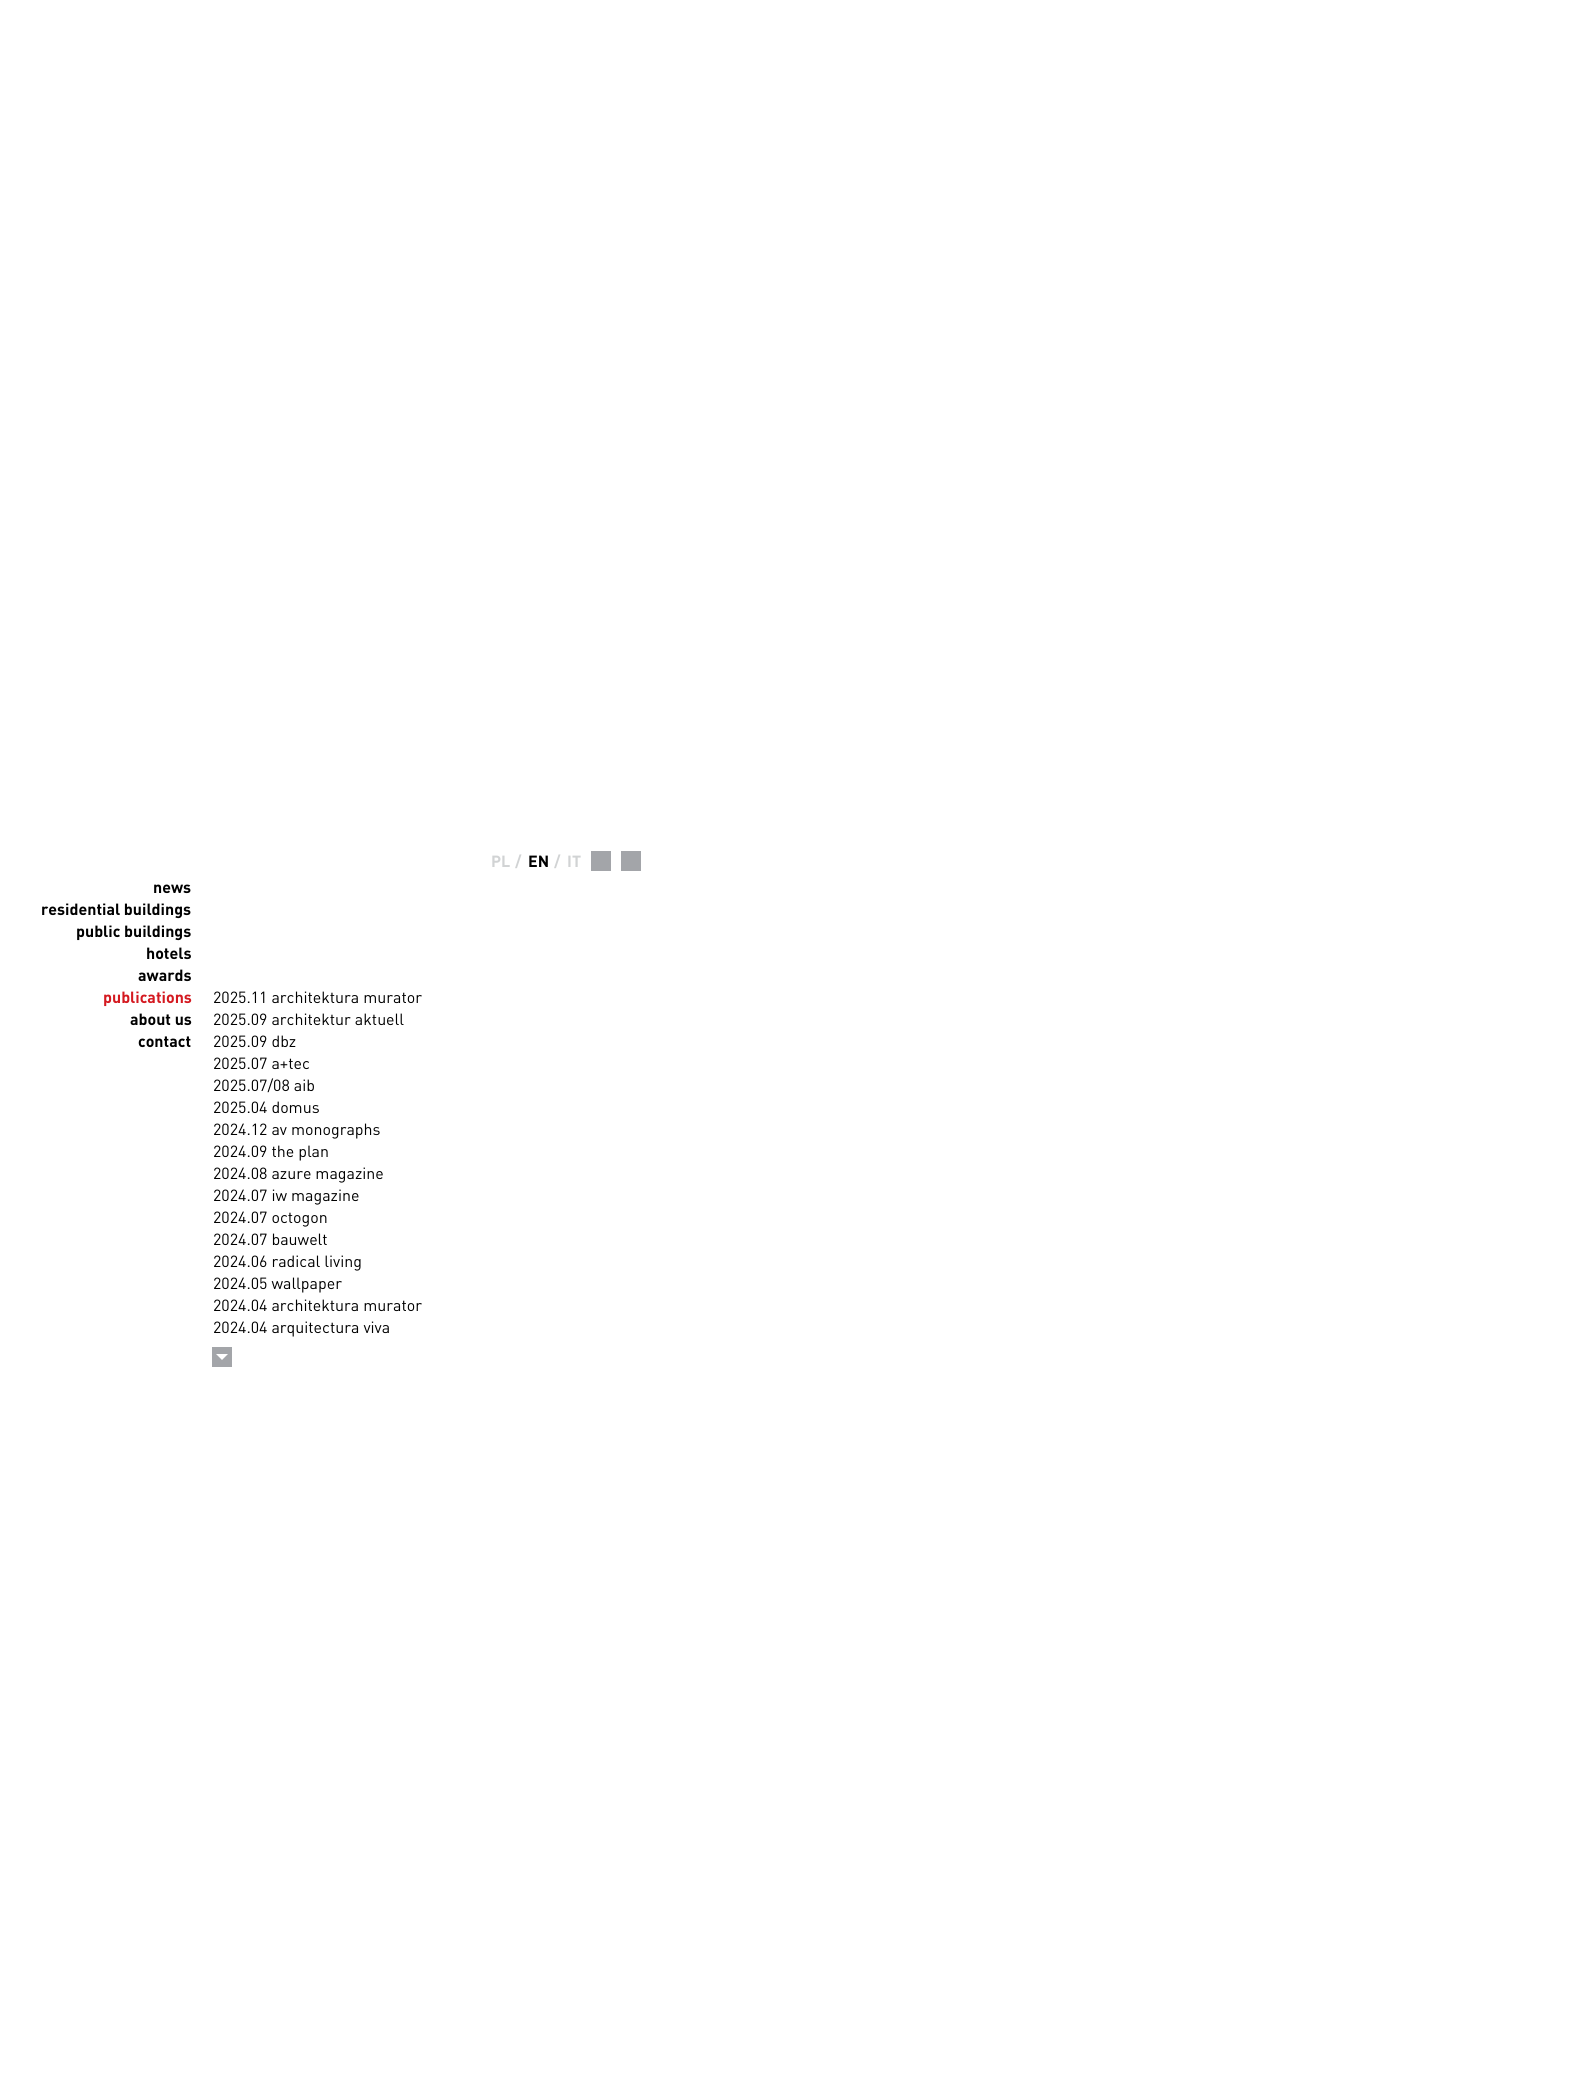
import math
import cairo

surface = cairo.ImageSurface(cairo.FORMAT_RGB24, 1586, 2076)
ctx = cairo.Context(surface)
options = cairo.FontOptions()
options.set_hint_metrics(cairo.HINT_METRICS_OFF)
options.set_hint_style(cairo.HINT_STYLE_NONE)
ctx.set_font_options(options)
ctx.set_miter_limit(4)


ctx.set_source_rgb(1, 1, 1)
ctx.paint()
ctx.select_font_face("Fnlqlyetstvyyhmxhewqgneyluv", cairo.FONT_SLANT_NORMAL, cairo.FONT_WEIGHT_BOLD)
ctx.set_font_size(16)
ctx.set_source_rgb(0.82, 0.827, 0.831)
ctx.move_to(491, 867)
ctx.show_text("PL")
ctx.move_to(515, 867)
ctx.show_text("/")
ctx.set_source_rgb(0, 0, 0)
ctx.move_to(528, 867)
ctx.show_text("EN")
ctx.set_source_rgb(0.82, 0.827, 0.831)
ctx.move_to(554, 867)
ctx.show_text("/")
ctx.move_to(567, 867)
ctx.show_text("IT")
ctx.set_source_rgb(0.639, 0.647, 0.663)
ctx.rectangle(591, 851, 20, 20)
ctx.fill()
ctx.rectangle(621, 851, 20, 20)
ctx.fill()
ctx.set_source_rgb(0, 0, 0)
ctx.move_to(153, 893)
ctx.show_text("news")
ctx.move_to(41, 915)
ctx.show_text("residential buildings")
ctx.move_to(76, 937)
ctx.show_text("public buildings")
ctx.move_to(146, 959)
ctx.show_text("hotels")
ctx.move_to(138, 981)
ctx.show_text("awards")
ctx.set_source_rgb(0.831, 0.098, 0.125)
ctx.move_to(103, 1003)
ctx.show_text("publications")
ctx.set_source_rgb(0, 0, 0)
ctx.move_to(130, 1025)
ctx.show_text("about us")
ctx.move_to(138, 1047)
ctx.show_text("contact")
ctx.select_font_face("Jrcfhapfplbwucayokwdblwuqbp")
ctx.move_to(213, 1003)
ctx.show_text("2025.11 architektura murator")
ctx.move_to(213, 1025)
ctx.show_text("2025.09 architektur aktuell")
ctx.move_to(213, 1047)
ctx.show_text("2025.09 dbz")
ctx.move_to(213, 1069)
ctx.show_text("2025.07 a+tec")
ctx.move_to(213, 1091)
ctx.show_text("2025.07/08 aib")
ctx.move_to(213, 1113)
ctx.show_text("2025.04 domus")
ctx.move_to(213, 1135)
ctx.show_text("2024.12 av monographs")
ctx.move_to(213, 1157)
ctx.show_text("2024.09 the plan")
ctx.move_to(213, 1179)
ctx.show_text("2024.08 azure magazine")
ctx.move_to(213, 1201)
ctx.show_text("2024.07 iw magazine")
ctx.move_to(213, 1223)
ctx.show_text("2024.07 octogon")
ctx.move_to(213, 1245)
ctx.show_text("2024.07 bauwelt")
ctx.move_to(213, 1267)
ctx.show_text("2024.06 radical living")
ctx.move_to(213, 1289)
ctx.show_text("2024.05 wallpaper")
ctx.move_to(213, 1311)
ctx.show_text("2024.04 architektura murator")
ctx.move_to(213, 1333)
ctx.show_text("2024.04 arquitectura viva")
ctx.set_source_rgb(0.639, 0.647, 0.663)
ctx.rectangle(212, 1347, 20, 20)
ctx.fill()
ctx.set_source_rgb(1, 1, 1)
ctx.new_path()
ctx.move_to(216, 1354)
ctx.line_to(228, 1354)
ctx.line_to(222, 1360)
ctx.close_path()
ctx.fill()
surface.write_to_png("page.png")
